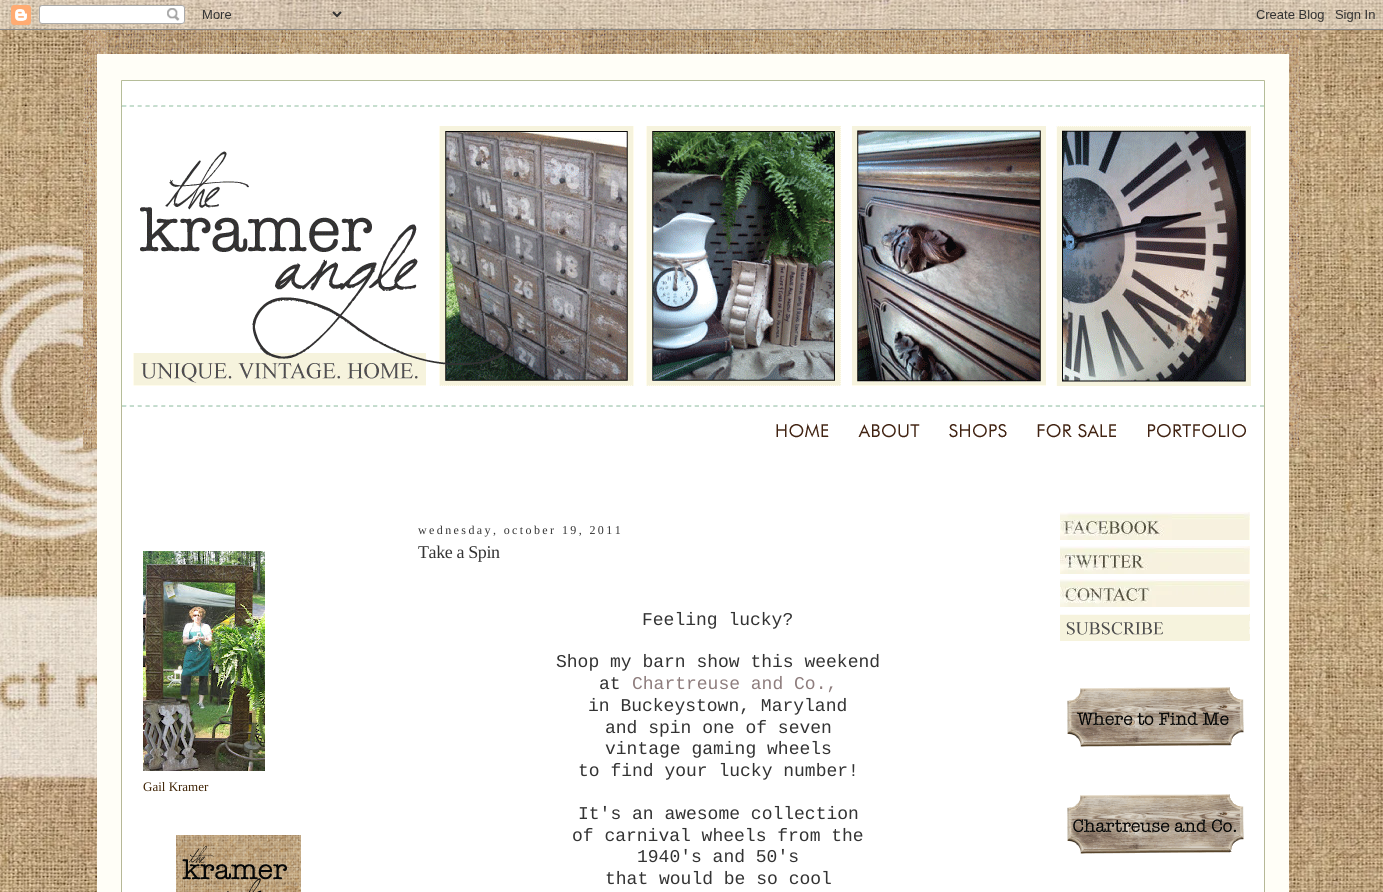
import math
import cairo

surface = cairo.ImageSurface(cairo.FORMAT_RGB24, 1383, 892)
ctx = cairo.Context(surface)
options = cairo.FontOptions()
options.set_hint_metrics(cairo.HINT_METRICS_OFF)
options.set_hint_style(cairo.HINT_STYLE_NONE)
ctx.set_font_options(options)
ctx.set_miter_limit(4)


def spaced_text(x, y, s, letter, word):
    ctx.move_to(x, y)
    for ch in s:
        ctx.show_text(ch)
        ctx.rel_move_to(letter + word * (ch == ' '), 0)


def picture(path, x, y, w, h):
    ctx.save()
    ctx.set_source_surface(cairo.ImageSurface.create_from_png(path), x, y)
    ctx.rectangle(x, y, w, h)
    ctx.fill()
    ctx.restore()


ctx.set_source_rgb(1, 1, 1)
ctx.paint()
picture("img1.png", 0, 0, 1383, 892)
picture("img2.png", 0, 0, 1383, 30)
picture("img3.png", 97, 406, 1192, 486)
picture("img4.png", 83, 30, 1217, 376)
picture("img5.png", 83, 406, 762, 42)
picture("img6.png", 845, 406, 88, 32)
picture("img7.png", 933, 406, 85, 32)
picture("img8.png", 1018, 406, 113, 32)
picture("img9.png", 1134, 406, 166, 42)
picture("img10.png", 143, 551, 122, 220)
ctx.select_font_face("Liberation Serif")
ctx.set_font_size(13)
ctx.set_source_rgb(0.247, 0.137, 0.016)
ctx.move_to(143, 791)
ctx.show_text("Gail Kramer")
picture("img11.png", 176, 835, 125, 57)
ctx.set_font_size(12)
ctx.set_source_rgb(0.2, 0.2, 0.2)
spaced_text(418, 534, "wednesday, october 19, 2011", 2.4, 0)
ctx.set_font_size(18)
spaced_text(418, 558, "Take a Spin", -0.4, 0)
ctx.select_font_face("Liberation Mono")
ctx.move_to(642, 625)
ctx.show_text("Feeling lucky?")
ctx.move_to(556, 667)
ctx.show_text("Shop my barn show this weekend")
ctx.move_to(599, 689)
ctx.show_text("at")
ctx.set_source_rgb(0.557, 0.49, 0.49)
ctx.move_to(632, 689)
ctx.show_text("Chartreuse and Co.,")
ctx.set_source_rgb(0.2, 0.2, 0.2)
ctx.move_to(588, 711)
ctx.show_text("in Buckeystown, Maryland")
ctx.move_to(605, 733)
ctx.show_text("and spin one of seven")
ctx.move_to(605, 754)
ctx.show_text("vintage gaming wheels")
ctx.move_to(578, 776)
ctx.show_text("to find your lucky number!")
ctx.move_to(578, 819)
ctx.show_text("It's an awesome collection")
ctx.move_to(572, 841)
ctx.show_text("of carnival wheels from the")
ctx.move_to(637, 862)
ctx.show_text("1940's and 50's")
ctx.move_to(605, 884)
ctx.show_text("that would be so cool")
picture("img12.png", 1060, 512, 190, 28)
picture("img13.png", 1060, 546, 190, 28)
picture("img14.png", 1060, 579, 190, 28)
picture("img15.png", 1060, 614, 190, 27)
picture("img16.png", 1067, 687, 177, 60)
picture("img17.png", 1067, 794, 177, 60)
surface.write_to_png("page.png")
